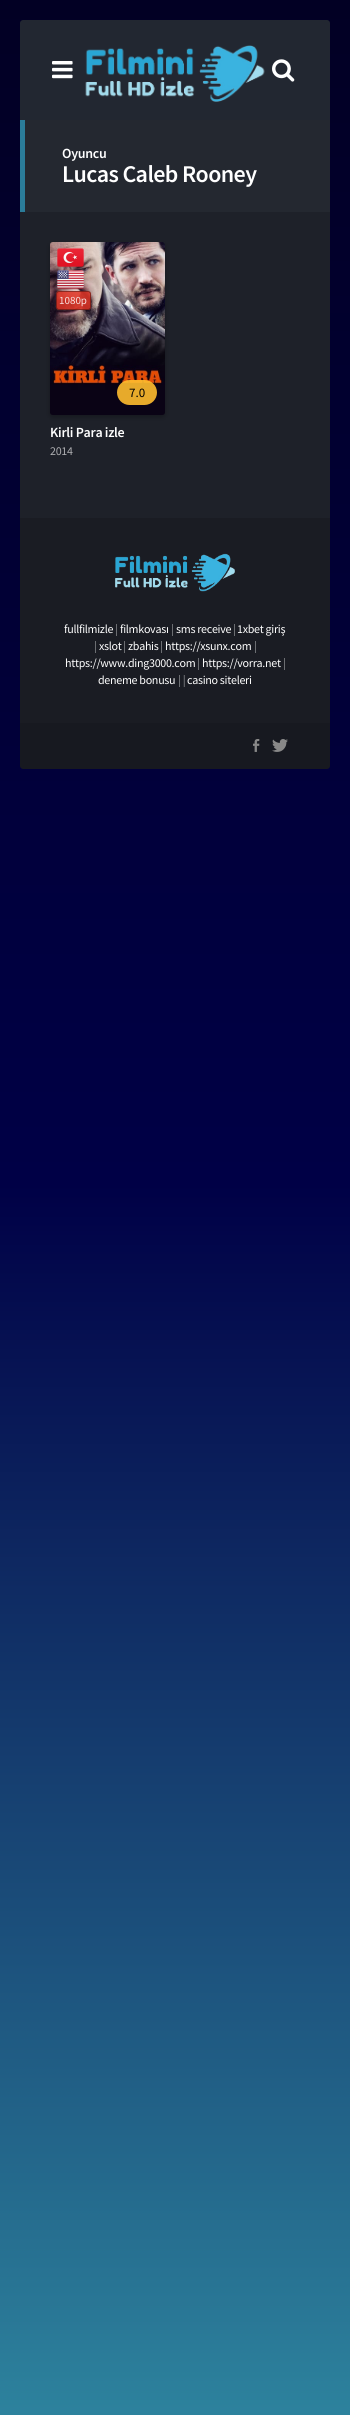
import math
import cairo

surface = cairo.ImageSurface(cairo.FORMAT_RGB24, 350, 2415)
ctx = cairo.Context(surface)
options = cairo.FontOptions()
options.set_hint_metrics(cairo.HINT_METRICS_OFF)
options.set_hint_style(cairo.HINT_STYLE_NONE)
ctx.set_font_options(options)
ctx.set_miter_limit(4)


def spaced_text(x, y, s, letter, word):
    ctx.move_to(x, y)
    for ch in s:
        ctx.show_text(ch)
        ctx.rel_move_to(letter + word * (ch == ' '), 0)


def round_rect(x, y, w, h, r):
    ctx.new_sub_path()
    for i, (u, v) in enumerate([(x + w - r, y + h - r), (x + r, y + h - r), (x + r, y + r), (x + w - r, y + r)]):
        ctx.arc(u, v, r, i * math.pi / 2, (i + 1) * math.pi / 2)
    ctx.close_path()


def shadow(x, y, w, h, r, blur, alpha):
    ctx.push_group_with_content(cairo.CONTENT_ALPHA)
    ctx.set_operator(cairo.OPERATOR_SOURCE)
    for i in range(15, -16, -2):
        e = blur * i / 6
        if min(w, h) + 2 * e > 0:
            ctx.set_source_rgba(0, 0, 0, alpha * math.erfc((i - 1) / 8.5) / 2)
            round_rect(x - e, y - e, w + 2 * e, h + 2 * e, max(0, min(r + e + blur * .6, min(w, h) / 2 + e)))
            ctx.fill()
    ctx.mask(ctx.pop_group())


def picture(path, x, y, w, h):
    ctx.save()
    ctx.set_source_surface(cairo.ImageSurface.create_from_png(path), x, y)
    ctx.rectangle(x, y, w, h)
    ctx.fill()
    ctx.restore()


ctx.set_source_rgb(1, 1, 1)
ctx.paint()
gradient = cairo.LinearGradient(175, 0, 175, 2415)
gradient.add_color_stop_rgba(0, 0.008, 0, 0.141, 1)
gradient.add_color_stop_rgba(0.49, 0, 0, 0.275, 1)
gradient.add_color_stop_rgba(1, 0.176, 0.51, 0.616, 1)
ctx.set_source(gradient)
ctx.rectangle(0, 0, 350, 2415)
ctx.fill()
ctx.set_source_rgb(0.133, 0.153, 0.192)
ctx.new_path()
ctx.move_to(23, 20)
ctx.line_to(327, 20)
ctx.curve_to(328.5, 20, 330, 21.5, 330, 23)
ctx.line_to(330, 120)
ctx.line_to(20, 120)
ctx.line_to(20, 23)
ctx.curve_to(20, 21.5, 21.5, 20, 23, 20)
ctx.close_path()
ctx.fill()
picture("img1.png", 52, 61, 21, 18)
picture("img2.png", 85, 45, 180, 57)
picture("img3.png", 272, 59, 23, 23)
ctx.set_source_rgb(0.141, 0.157, 0.188)
ctx.rectangle(25, 120, 305, 92)
ctx.fill()
ctx.set_source_rgb(0.169, 0.486, 0.6)
ctx.rectangle(20, 120, 5, 92)
ctx.fill()
ctx.select_font_face("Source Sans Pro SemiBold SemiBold")
ctx.set_font_size(14)
ctx.set_source_rgb(1, 1, 1)
spaced_text(62, 158, "Oyuncu", -0.3, 0)
ctx.set_font_size(24)
spaced_text(62, 182, "Lucas Caleb Rooney", -0.6, 0)
ctx.set_source_rgb(0.118, 0.129, 0.161)
ctx.rectangle(20, 212, 310, 306)
ctx.fill()
ctx.set_source_rgb(0, 0, 0)
shadow(50, 244, 115, 173, 3, 2.5, 0.28)
picture("img4.png", 50, 242, 115, 173)
picture("img5.png", 57, 248, 27, 20)
picture("img6.png", 57, 270, 27, 20)
ctx.set_source_rgba(0.886, 0.208, 0.145, 0.84)
round_rect(56, 291, 35, 19, 3)
ctx.fill()
round_rect(56.5, 291.5, 34, 18, 2.5)
ctx.set_source_rgba(0, 0, 0, 0.36)
ctx.set_line_width(1)
ctx.stroke()
ctx.select_font_face("Source Sans Pro")
ctx.set_font_size(11)
ctx.set_source_rgb(0.973, 0.886, 0.878)
ctx.move_to(59, 304)
ctx.show_text("1080p")
ctx.set_source_rgba(1, 0.741, 0.18, 0.9)
round_rect(117, 380, 40, 25, 12.5)
ctx.fill()
ctx.set_font_size(13)
ctx.set_source_rgb(0, 0, 0)
ctx.move_to(129, 397)
ctx.show_text("7.0")
ctx.select_font_face("Source Sans Pro SemiBold SemiBold")
ctx.set_font_size(14)
ctx.set_source_rgb(1, 1, 1)
spaced_text(50, 437, "Kirli Para izle", -0.3, 0)
ctx.select_font_face("Source Sans Pro")
ctx.set_font_size(12)
ctx.set_source_rgb(0.675, 0.678, 0.69)
spaced_text(50, 455, "2014", -0.3, 0)
ctx.set_source_rgb(0.102, 0.11, 0.137)
ctx.rectangle(20, 518, 310, 205)
ctx.fill()
picture("img7.png", 115, 553, 120, 39)
ctx.set_source_rgb(1, 1, 1)
spaced_text(64, 633, "fullfilmizle", -0.3, 0)
ctx.set_source_rgb(0.569, 0.573, 0.584)
spaced_text(115, 633, "|", -0.3, 0)
ctx.set_source_rgb(1, 1, 1)
spaced_text(120, 633, "filmkovası", -0.3, 0)
ctx.set_source_rgb(0.569, 0.573, 0.584)
spaced_text(171, 633, "|", -0.3, 0)
ctx.set_source_rgb(1, 1, 1)
spaced_text(176, 633, "sms receive", -0.3, 0)
ctx.set_source_rgb(0.569, 0.573, 0.584)
spaced_text(233, 633, "|", -0.3, 0)
ctx.set_source_rgb(1, 1, 1)
spaced_text(237, 633, "1xbet giriş", -0.3, 0)
ctx.set_source_rgb(0.569, 0.573, 0.584)
spaced_text(94, 650, "|", -0.3, 0)
ctx.set_source_rgb(1, 1, 1)
spaced_text(99, 650, "xslot", -0.3, 0)
ctx.set_source_rgb(0.569, 0.573, 0.584)
spaced_text(123, 650, "|", -0.3, 0)
ctx.set_source_rgb(1, 1, 1)
spaced_text(128, 650, "zbahis", -0.3, 0)
ctx.set_source_rgb(0.569, 0.573, 0.584)
spaced_text(160, 650, "|", -0.3, 0)
ctx.set_source_rgb(1, 1, 1)
spaced_text(165, 650, "https://xsunx.com", -0.3, 0)
ctx.set_source_rgb(0.569, 0.573, 0.584)
spaced_text(254, 650, "|", -0.3, 0)
ctx.set_source_rgb(1, 1, 1)
spaced_text(65, 667, "https://www.ding3000.com", -0.3, 0)
ctx.set_source_rgb(0.569, 0.573, 0.584)
spaced_text(197, 667, "|", -0.3, 0)
ctx.set_source_rgb(1, 1, 1)
spaced_text(202, 667, "https://vorra.net", -0.3, 0)
ctx.set_source_rgb(0.569, 0.573, 0.584)
spaced_text(283, 667, "|", -0.3, 0)
ctx.set_source_rgb(1, 1, 1)
spaced_text(98, 684, "deneme bonusu", -0.3, 0)
ctx.set_source_rgb(0.569, 0.573, 0.584)
spaced_text(178, 684, "| |", -0.3, 0)
ctx.set_source_rgb(1, 1, 1)
spaced_text(187, 684, "casino siteleri", -0.3, 0)
ctx.set_source_rgb(0.09, 0.098, 0.125)
ctx.new_path()
ctx.move_to(20, 723)
ctx.line_to(330, 723)
ctx.line_to(330, 766)
ctx.curve_to(330, 767.5, 328.5, 769, 327, 769)
ctx.line_to(23, 769)
ctx.curve_to(21.5, 769, 20, 767.5, 20, 766)
ctx.close_path()
ctx.fill()
picture("img8.png", 253, 739, 7, 13)
picture("img9.png", 272, 739, 16, 13)
surface.write_to_png("page.png")
